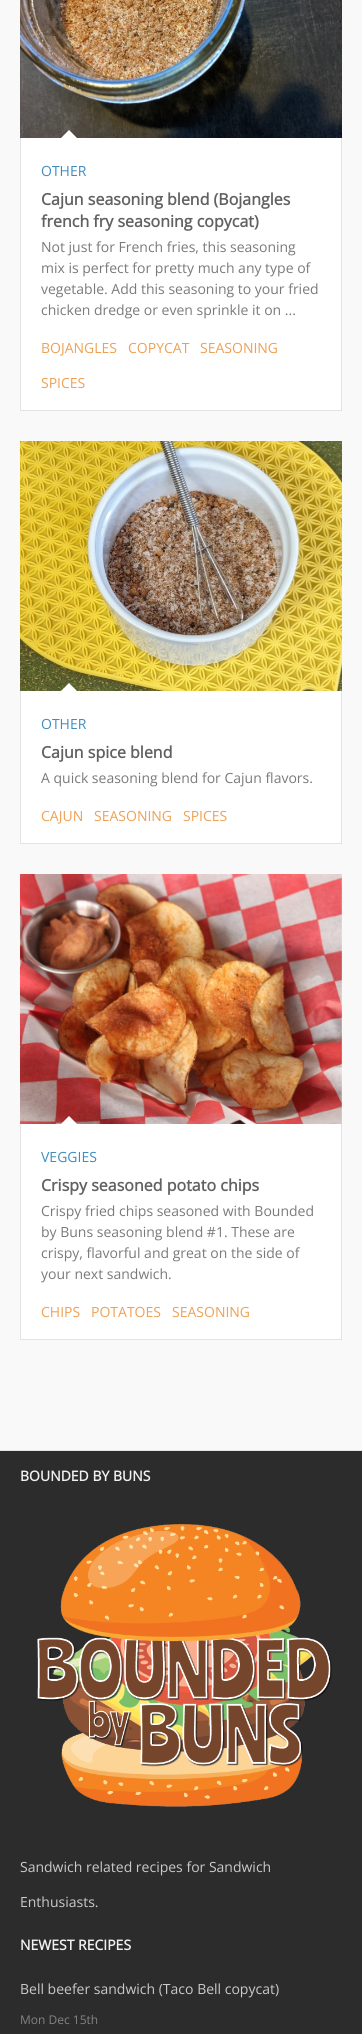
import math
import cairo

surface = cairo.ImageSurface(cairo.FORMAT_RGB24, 362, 2034)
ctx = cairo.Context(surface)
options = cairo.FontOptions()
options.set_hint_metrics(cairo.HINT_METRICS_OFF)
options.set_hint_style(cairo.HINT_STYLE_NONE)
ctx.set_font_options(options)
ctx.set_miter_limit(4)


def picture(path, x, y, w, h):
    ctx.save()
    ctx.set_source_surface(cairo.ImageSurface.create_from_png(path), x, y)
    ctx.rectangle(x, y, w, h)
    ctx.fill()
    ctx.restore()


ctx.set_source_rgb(0.976, 0.976, 0.976)
ctx.paint()
ctx.set_source_rgb(0.89, 0.89, 0.89)
ctx.rectangle(0, 1450, 362, 1)
ctx.fill()
picture("img1.png", 20, 0, 322, 138)
ctx.set_source_rgb(1, 1, 1)
ctx.rectangle(21, 138, 320, 272)
ctx.fill()
ctx.set_source_rgb(0.89, 0.89, 0.89)
ctx.rectangle(341, 138, 1, 273)
ctx.fill()
ctx.rectangle(20, 410, 322, 1)
ctx.fill()
ctx.rectangle(20, 138, 1, 273)
ctx.fill()
ctx.set_source_rgb(1, 1, 1)
ctx.new_path()
ctx.move_to(77, 138)
ctx.line_to(61, 138)
ctx.line_to(69, 130)
ctx.close_path()
ctx.fill()
ctx.select_font_face("Open Sans")
ctx.set_font_size(14)
ctx.set_source_rgb(0.247, 0.553, 0.749)
ctx.move_to(41, 176)
ctx.show_text("OTHER")
ctx.select_font_face("Open Sans", cairo.FONT_SLANT_NORMAL, cairo.FONT_WEIGHT_BOLD)
ctx.set_font_size(16)
ctx.set_source_rgb(0.38, 0.38, 0.38)
ctx.move_to(41, 205)
ctx.show_text("Cajun seasoning blend (Bojangles")
ctx.move_to(41, 227)
ctx.show_text("french fry seasoning copycat)")
ctx.select_font_face("Open Sans")
ctx.set_font_size(14)
ctx.set_source_rgb(0.478, 0.478, 0.478)
ctx.move_to(41, 252)
ctx.show_text("Not just for French fries, this seasoning")
ctx.move_to(41, 273)
ctx.show_text("mix is perfect for pretty much any type of")
ctx.move_to(41, 294)
ctx.show_text("vegetable. Add this seasoning to your fried")
ctx.move_to(41, 315)
ctx.show_text("chicken dredge or even sprinkle it on ...")
ctx.set_source_rgb(0.933, 0.631, 0.329)
ctx.move_to(41, 353)
ctx.show_text("BOJANGLES")
ctx.move_to(128, 353)
ctx.show_text("COPYCAT")
ctx.move_to(200, 353)
ctx.show_text("SEASONING")
ctx.move_to(41, 388)
ctx.show_text("SPICES")
picture("img2.png", 20, 441, 322, 250)
ctx.set_source_rgb(1, 1, 1)
ctx.rectangle(21, 691, 320, 152)
ctx.fill()
ctx.set_source_rgb(0.89, 0.89, 0.89)
ctx.rectangle(341, 691, 1, 153)
ctx.fill()
ctx.rectangle(20, 843, 322, 1)
ctx.fill()
ctx.rectangle(20, 691, 1, 153)
ctx.fill()
ctx.set_source_rgb(1, 1, 1)
ctx.new_path()
ctx.move_to(77, 691)
ctx.line_to(61, 691)
ctx.line_to(69, 683)
ctx.close_path()
ctx.fill()
ctx.set_source_rgb(0.247, 0.553, 0.749)
ctx.move_to(41, 729)
ctx.show_text("OTHER")
ctx.select_font_face("Open Sans", cairo.FONT_SLANT_NORMAL, cairo.FONT_WEIGHT_BOLD)
ctx.set_font_size(16)
ctx.set_source_rgb(0.38, 0.38, 0.38)
ctx.move_to(41, 758)
ctx.show_text("Cajun spice blend")
ctx.select_font_face("Open Sans")
ctx.set_font_size(14)
ctx.set_source_rgb(0.478, 0.478, 0.478)
ctx.move_to(41, 783)
ctx.show_text("A quick seasoning blend for Cajun flavors.")
ctx.set_source_rgb(0.933, 0.631, 0.329)
ctx.move_to(41, 821)
ctx.show_text("CAJUN")
ctx.move_to(94, 821)
ctx.show_text("SEASONING")
ctx.move_to(183, 821)
ctx.show_text("SPICES")
picture("img3.png", 20, 874, 322, 250)
ctx.set_source_rgb(1, 1, 1)
ctx.rectangle(21, 1124, 320, 215)
ctx.fill()
ctx.set_source_rgb(0.89, 0.89, 0.89)
ctx.rectangle(341, 1124, 1, 216)
ctx.fill()
ctx.rectangle(20, 1339, 322, 1)
ctx.fill()
ctx.rectangle(20, 1124, 1, 216)
ctx.fill()
ctx.set_source_rgb(1, 1, 1)
ctx.new_path()
ctx.move_to(77, 1124)
ctx.line_to(61, 1124)
ctx.line_to(69, 1116)
ctx.close_path()
ctx.fill()
ctx.set_source_rgb(0.247, 0.553, 0.749)
ctx.move_to(41, 1162)
ctx.show_text("VEGGIES")
ctx.select_font_face("Open Sans", cairo.FONT_SLANT_NORMAL, cairo.FONT_WEIGHT_BOLD)
ctx.set_font_size(16)
ctx.set_source_rgb(0.38, 0.38, 0.38)
ctx.move_to(41, 1191)
ctx.show_text("Crispy seasoned potato chips")
ctx.select_font_face("Open Sans")
ctx.set_font_size(14)
ctx.set_source_rgb(0.478, 0.478, 0.478)
ctx.move_to(41, 1216)
ctx.show_text("Crispy fried chips seasoned with Bounded")
ctx.move_to(41, 1237)
ctx.show_text("by Buns seasoning blend #1. These are")
ctx.move_to(41, 1258)
ctx.show_text("crispy, flavorful and great on the side of")
ctx.move_to(41, 1279)
ctx.show_text("your next sandwich.")
ctx.set_source_rgb(0.933, 0.631, 0.329)
ctx.move_to(41, 1317)
ctx.show_text("CHIPS")
ctx.move_to(91, 1317)
ctx.show_text("POTATOES")
ctx.move_to(172, 1317)
ctx.show_text("SEASONING")
ctx.set_source_rgb(0.173, 0.173, 0.173)
ctx.rectangle(0, 1451, 362, 583)
ctx.fill()
ctx.select_font_face("Open Sans", cairo.FONT_SLANT_NORMAL, cairo.FONT_WEIGHT_BOLD)
ctx.set_source_rgb(0.941, 0.941, 0.941)
ctx.move_to(20, 1481)
ctx.show_text("BOUNDED BY BUNS")
picture("img4.png", 37, 1524, 295, 283)
ctx.select_font_face("Open Sans")
ctx.set_source_rgb(0.792, 0.792, 0.792)
ctx.move_to(20, 1872)
ctx.show_text("Sandwich related recipes for Sandwich")
ctx.move_to(20, 1907)
ctx.show_text("Enthusiasts.")
ctx.select_font_face("Open Sans", cairo.FONT_SLANT_NORMAL, cairo.FONT_WEIGHT_BOLD)
ctx.set_source_rgb(0.941, 0.941, 0.941)
ctx.move_to(20, 1950)
ctx.show_text("NEWEST RECIPES")
ctx.select_font_face("Open Sans")
ctx.set_source_rgb(0.792, 0.792, 0.792)
ctx.move_to(20, 1994)
ctx.show_text("Bell beefer sandwich (Taco Bell copycat)")
ctx.set_font_size(12)
ctx.set_source_rgb(0.514, 0.514, 0.514)
ctx.move_to(20, 2024)
ctx.show_text("Mon Dec 15th")
surface.write_to_png("page.png")
